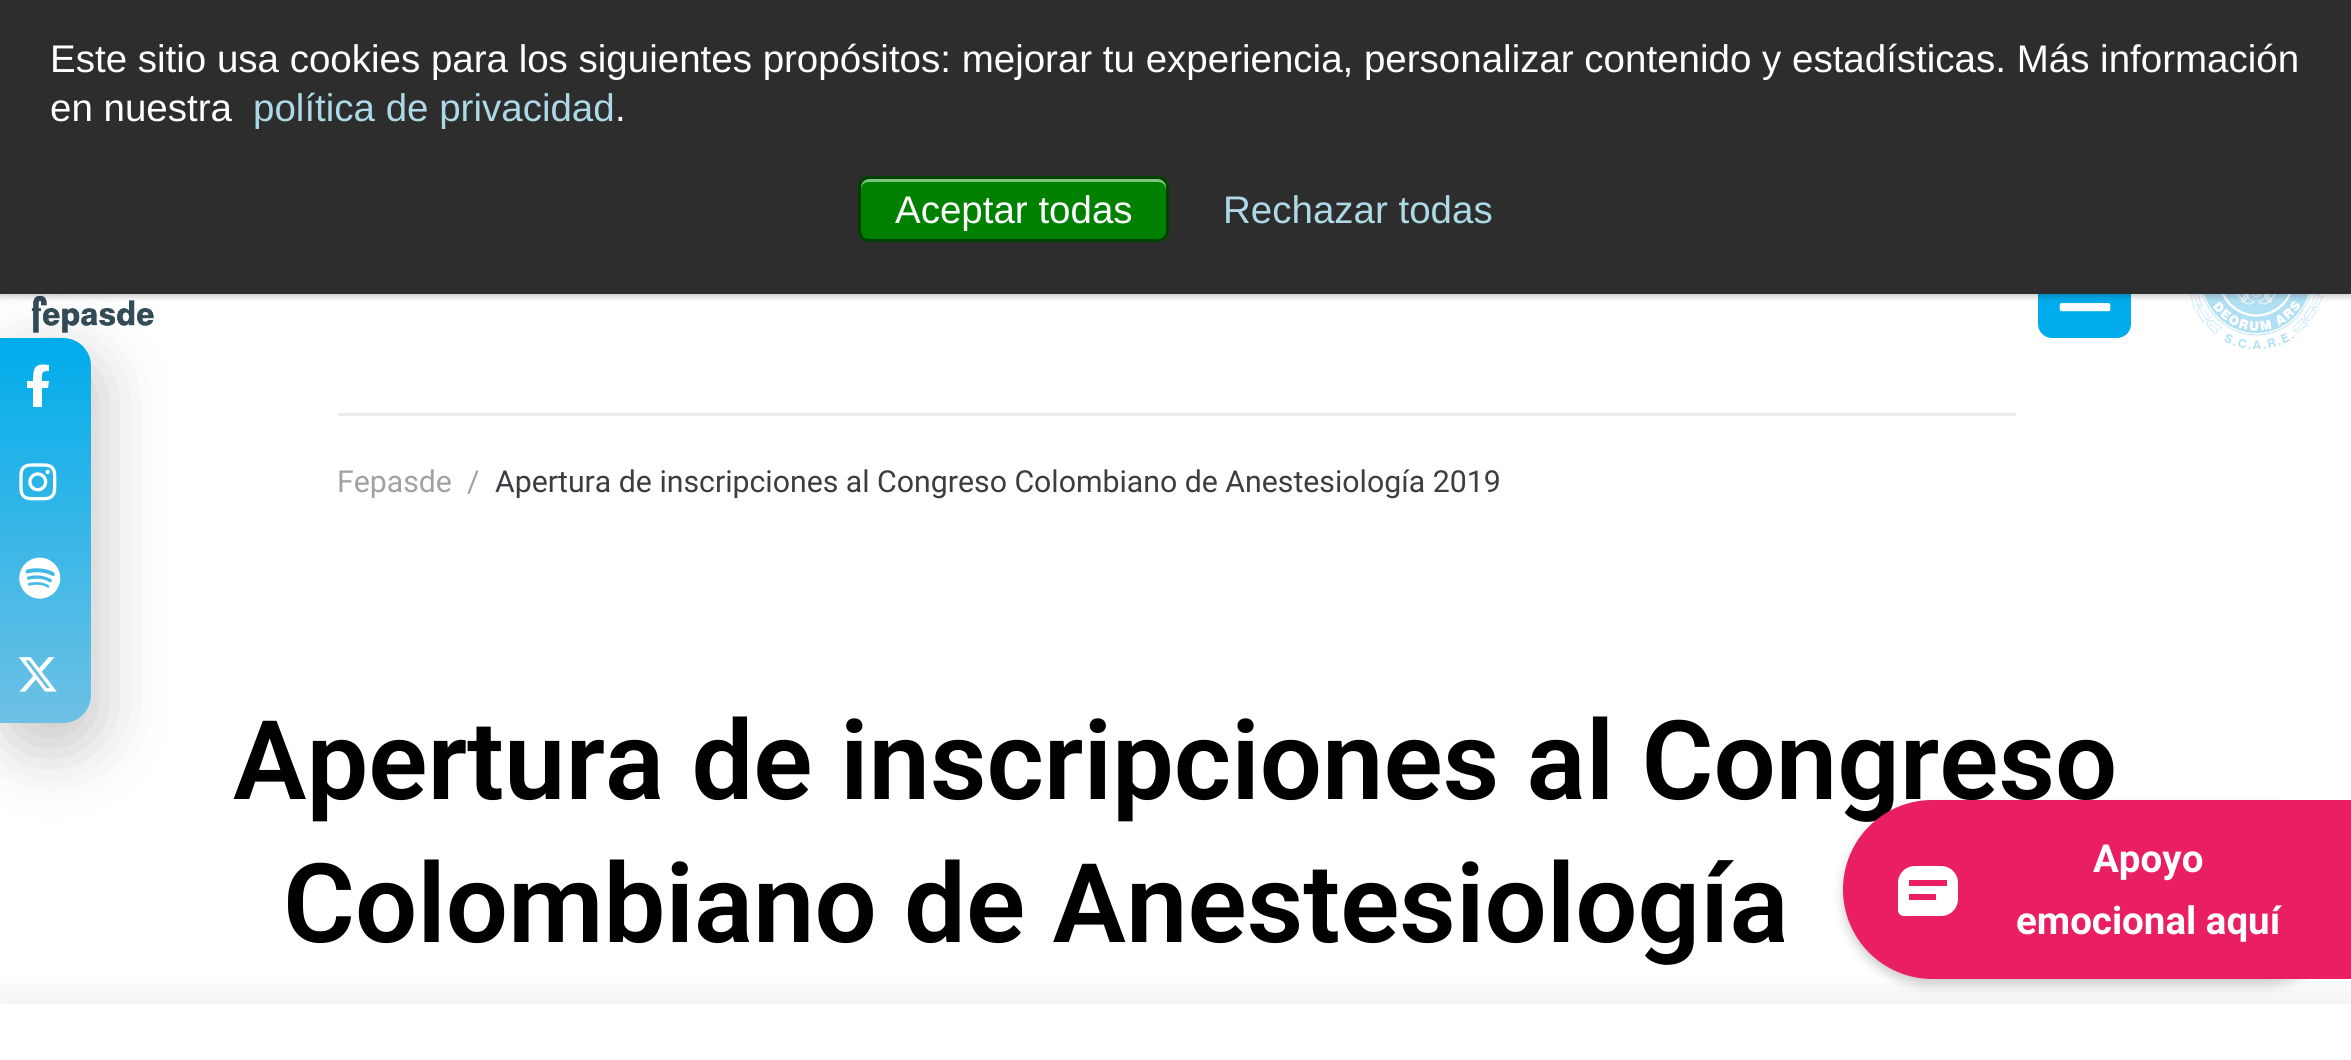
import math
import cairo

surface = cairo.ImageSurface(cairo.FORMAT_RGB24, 2351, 1060)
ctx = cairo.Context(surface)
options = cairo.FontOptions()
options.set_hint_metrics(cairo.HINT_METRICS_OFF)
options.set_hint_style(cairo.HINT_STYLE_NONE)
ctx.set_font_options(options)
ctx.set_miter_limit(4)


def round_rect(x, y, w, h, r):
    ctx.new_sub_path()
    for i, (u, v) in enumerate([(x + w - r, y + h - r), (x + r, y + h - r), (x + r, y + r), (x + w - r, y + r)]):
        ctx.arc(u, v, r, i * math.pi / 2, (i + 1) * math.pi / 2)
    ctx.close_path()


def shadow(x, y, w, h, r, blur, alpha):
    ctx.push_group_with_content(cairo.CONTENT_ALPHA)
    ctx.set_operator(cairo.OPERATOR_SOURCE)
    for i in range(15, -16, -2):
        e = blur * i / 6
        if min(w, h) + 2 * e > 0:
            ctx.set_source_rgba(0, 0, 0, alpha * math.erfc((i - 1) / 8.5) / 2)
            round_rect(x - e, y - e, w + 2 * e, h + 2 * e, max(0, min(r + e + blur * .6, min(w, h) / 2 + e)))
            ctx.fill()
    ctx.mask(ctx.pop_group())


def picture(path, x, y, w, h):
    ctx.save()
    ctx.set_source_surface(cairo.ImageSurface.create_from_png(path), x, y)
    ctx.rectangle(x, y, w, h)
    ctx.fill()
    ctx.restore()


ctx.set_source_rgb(1, 1, 1)
ctx.paint()
picture("img4.png", 31, 295, 123, 38)
ctx.set_source_rgb(0, 0.675, 0.922)
round_rect(2038, 245, 93, 93, 14)
ctx.fill()
picture("img5.png", 2059, 303, 52, 9)
picture("img6.png", 2191, 294, 133, 55)
ctx.set_source_rgb(0, 0, 0)
shadow(0, 3, 2351, 294, 0, 3, 0.2)
shadow(-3, 352, 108, 402, 36, 31.5, 0.2)
ctx.set_source_rgb(0.176, 0.176, 0.176)
ctx.rectangle(0, 0, 2351, 294)
ctx.fill()
ctx.select_font_face("Liberation Sans")
ctx.set_font_size(38.5)
ctx.set_source_rgb(1, 1, 1)
ctx.move_to(50, 72)
ctx.show_text("Este sitio usa cookies para los siguientes propósitos: mejorar tu experiencia, personalizar contenido y estadísticas. Más información")
ctx.move_to(50, 121)
ctx.show_text("en nuestra")
ctx.set_source_rgb(0.678, 0.847, 0.902)
ctx.move_to(253, 121)
ctx.show_text("política de privacidad")
ctx.set_source_rgb(1, 1, 1)
ctx.move_to(615, 121)
ctx.show_text(".")
ctx.set_source_rgb(0, 0.502, 0)
round_rect(858, 176, 311, 66, 11)
ctx.fill()
ctx.set_source_rgb(0.502, 0.753, 0.502)
ctx.new_path()
ctx.move_to(869, 182)
ctx.line_to(1158, 182)
ctx.curve_to(1162, 182, 1166, 185, 1166, 190)
ctx.line_to(1166, 187)
ctx.curve_to(1166, 183, 1162, 179, 1158, 179)
ctx.line_to(869, 179)
ctx.curve_to(865, 179, 861, 183, 861, 187)
ctx.line_to(861, 190)
ctx.curve_to(861, 185, 864, 182, 869, 182)
ctx.close_path()
ctx.fill()
round_rect(859.5, 177.5, 308, 63, 9.5)
ctx.set_source_rgba(0, 0, 0, 0.5)
ctx.set_line_width(3)
ctx.stroke()
ctx.set_source_rgb(1, 1, 1)
ctx.move_to(895, 223)
ctx.show_text("Aceptar todas")
ctx.set_source_rgb(0.678, 0.847, 0.902)
ctx.move_to(1223, 223)
ctx.show_text("Rechazar todas")
gradient = cairo.LinearGradient(45, 338, 45, 723)
gradient.add_color_stop_rgba(0, 0, 0.675, 0.922, 1)
gradient.add_color_stop_rgba(1, 0.431, 0.757, 0.894, 1)
ctx.set_source(gradient)
ctx.new_path()
ctx.move_to(0, 338)
ctx.line_to(63, 338)
ctx.curve_to(78.5, 338, 91, 350.5, 91, 366)
ctx.line_to(91, 695)
ctx.curve_to(91, 710.5, 78.5, 723, 63, 723)
ctx.line_to(0, 723)
ctx.close_path()
ctx.fill()
ctx.set_source_rgb(1, 1, 1)
ctx.new_path()
ctx.move_to(48, 388)
ctx.line_to(42, 388)
ctx.line_to(42, 407)
ctx.line_to(33, 407)
ctx.line_to(33, 388)
ctx.line_to(27, 388)
ctx.line_to(27, 381)
ctx.line_to(33, 381)
ctx.curve_to(33, 367, 35, 363, 49, 365)
ctx.line_to(49, 371)
ctx.curve_to(41, 371, 42, 373, 42, 381)
ctx.line_to(49, 381)
ctx.close_path()
ctx.fill()
picture("img1.png", 19, 463, 38, 38)
picture("img2.png", 19, 557, 42, 42)
picture("img3.png", 18, 657, 39, 35)
ctx.set_source_rgb(0.922, 0.925, 0.929)
ctx.rectangle(338, 413, 1678, 3)
ctx.fill()
ctx.select_font_face("Roboto")
ctx.set_font_size(30.25)
ctx.set_source_rgb(0.631, 0.635, 0.643)
ctx.move_to(337, 492)
ctx.show_text("Fepasde")
ctx.move_to(467, 492)
ctx.show_text("/")
ctx.set_source_rgb(0.231, 0.239, 0.259)
ctx.move_to(495, 492)
ctx.show_text("Apertura de inscripciones al Congreso Colombiano de Anestesiología 2019")
ctx.select_font_face("Roboto SemiBold")
ctx.set_font_size(110)
ctx.set_source_rgb(0, 0, 0)
ctx.move_to(233, 799)
ctx.show_text("Apertura de inscripciones al Congreso")
ctx.move_to(283, 942)
ctx.show_text("Colombiano de Anestesiología")
ctx.save()
ctx.rectangle(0, 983, 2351, 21)
ctx.clip()
ctx.set_source_rgb(0, 0, 0)
shadow(0, 1004, 2351, 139, 0, 27.5, 0.09)
ctx.restore()
ctx.set_source_rgb(0, 0, 0)
shadow(1843, 806, 508, 179, 89.5, 5.5, 0.2)
ctx.set_source_rgb(0.914, 0.118, 0.388)
ctx.new_path()
ctx.move_to(1932.5, 800)
ctx.line_to(2351, 800)
ctx.line_to(2351, 979)
ctx.line_to(1932.5, 979)
ctx.curve_to(1883, 979, 1843, 939, 1843, 889.5)
ctx.curve_to(1843, 840, 1883, 800, 1932.5, 800)
ctx.close_path()
ctx.fill()
ctx.set_source_rgb(1, 1, 1)
ctx.new_path()
ctx.move_to(1915, 866)
ctx.line_to(1941, 866)
ctx.curve_to(1950.5, 866, 1958, 873.5, 1958, 883)
ctx.line_to(1958, 899)
ctx.curve_to(1958, 908.5, 1950.5, 916, 1941, 916)
ctx.line_to(1904, 916)
ctx.curve_to(1900.5, 916, 1898, 913.5, 1898, 910)
ctx.line_to(1898, 883)
ctx.curve_to(1898, 873.5, 1905.5, 866, 1915, 866)
ctx.close_path()
ctx.fill()
ctx.set_source_rgb(0.914, 0.118, 0.388)
ctx.rectangle(1909, 880, 38, 6)
ctx.fill()
ctx.rectangle(1909, 894, 27, 6)
ctx.fill()
ctx.select_font_face("Roboto", cairo.FONT_SLANT_NORMAL, cairo.FONT_WEIGHT_BOLD)
ctx.set_font_size(38.5)
ctx.set_source_rgb(1, 1, 1)
ctx.move_to(2093, 872)
ctx.show_text("Apoyo")
ctx.move_to(2016, 934)
ctx.show_text("emocional aquí")
surface.write_to_png("page.png")
